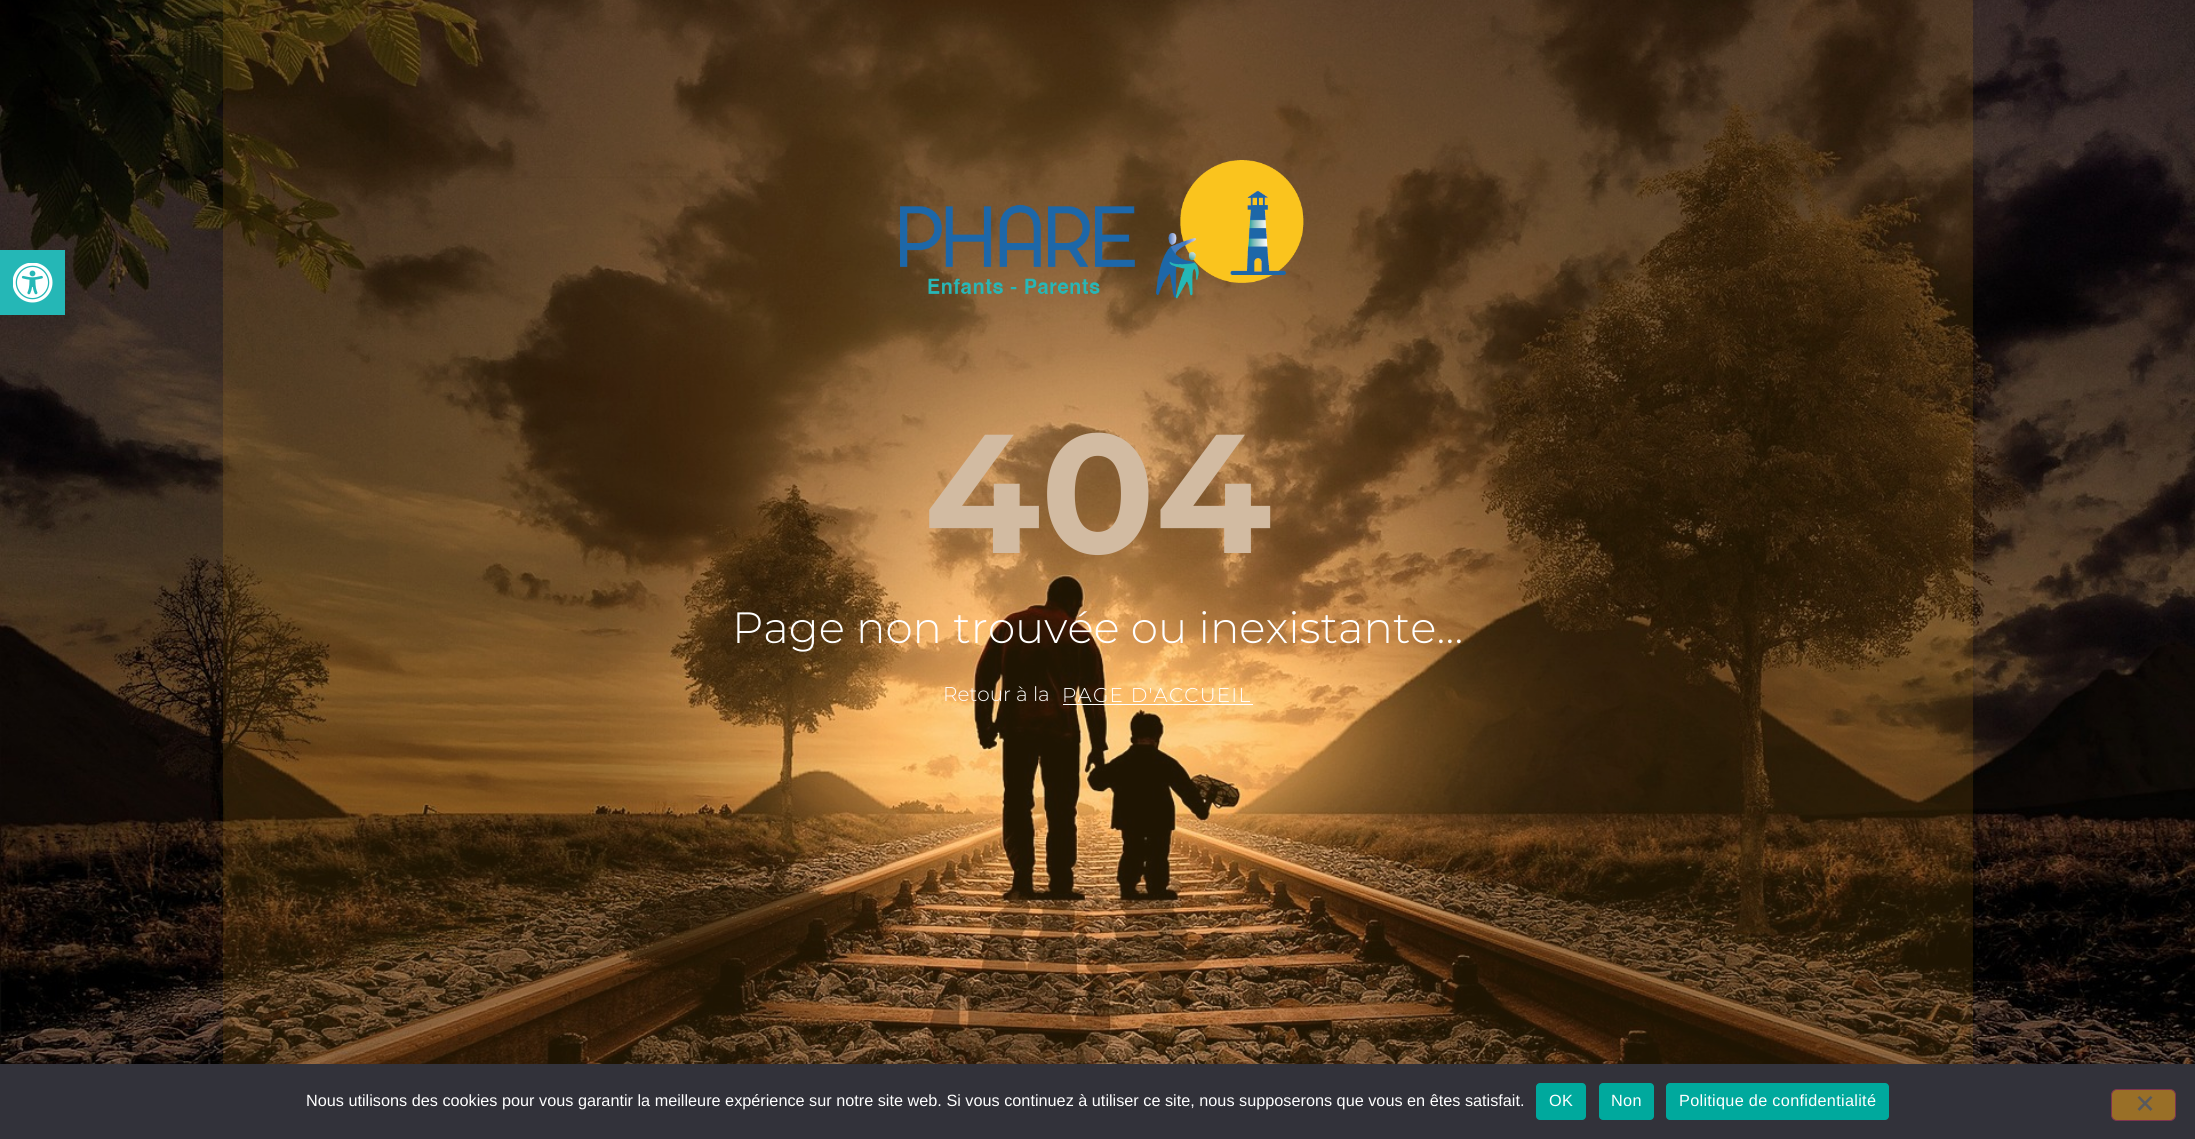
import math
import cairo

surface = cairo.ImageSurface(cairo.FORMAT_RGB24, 2195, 1139)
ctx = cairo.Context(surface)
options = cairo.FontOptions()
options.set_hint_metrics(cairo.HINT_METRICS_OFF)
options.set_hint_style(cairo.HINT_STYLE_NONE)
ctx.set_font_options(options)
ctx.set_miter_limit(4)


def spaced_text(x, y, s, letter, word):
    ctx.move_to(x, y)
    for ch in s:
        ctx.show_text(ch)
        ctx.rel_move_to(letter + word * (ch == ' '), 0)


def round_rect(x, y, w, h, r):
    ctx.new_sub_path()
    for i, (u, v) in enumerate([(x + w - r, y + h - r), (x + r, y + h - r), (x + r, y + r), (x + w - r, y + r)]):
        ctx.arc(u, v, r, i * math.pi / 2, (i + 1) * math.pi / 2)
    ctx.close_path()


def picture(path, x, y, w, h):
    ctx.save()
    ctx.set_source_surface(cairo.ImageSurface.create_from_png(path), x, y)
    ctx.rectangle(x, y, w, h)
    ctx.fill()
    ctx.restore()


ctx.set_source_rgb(1, 1, 1)
ctx.paint()
picture("img2.png", 0, 0, 2195, 1064)
ctx.set_source_rgb(0.145, 0.718, 0.714)
ctx.rectangle(0, 250, 65, 65)
ctx.fill()
picture("img1.png", 13, 263, 40, 40)
ctx.set_source_rgba(1, 0.675, 0.078, 0.12)
ctx.rectangle(223, 0, 1750, 1064)
ctx.fill()
picture("img3.png", 900, 160, 404, 139)
ctx.select_font_face("Montserrat", cairo.FONT_SLANT_NORMAL, cairo.FONT_WEIGHT_BOLD)
ctx.set_font_size(169)
ctx.set_source_rgb(0.824, 0.733, 0.635)
ctx.move_to(924, 553)
ctx.show_text("404")
ctx.select_font_face("Montserrat Light")
ctx.set_font_size(43.75)
ctx.set_source_rgb(1, 1, 1)
ctx.move_to(732, 643)
ctx.show_text("Page non trouvée ou inexistante…")
ctx.set_font_size(20)
ctx.move_to(943, 701)
ctx.show_text("Retour à la")
spaced_text(1062, 702, "PAGE D'ACCUEIL", 1.25, 0)
ctx.rectangle(1063, 704, 190, 1)
ctx.fill()
ctx.set_source_rgb(0.196, 0.196, 0.227)
ctx.rectangle(0, 1064, 2195, 75)
ctx.fill()
ctx.select_font_face("Liberation Sans")
ctx.set_font_size(16.25)
ctx.set_source_rgb(1, 1, 1)
ctx.move_to(306, 1106)
ctx.show_text("Nous utilisons des cookies pour vous garantir la meilleure expérience sur notre site web. Si vous continuez à utiliser ce site, nous supposerons que vous en êtes satisfait.")
ctx.set_source_rgb(0, 0.663, 0.616)
round_rect(1536, 1083, 50, 37, 4)
ctx.fill()
ctx.set_source_rgb(1, 1, 1)
spaced_text(1549, 1106, "OK", 0.3, 0)
ctx.set_source_rgb(0, 0.663, 0.616)
round_rect(1599, 1083, 55, 37, 4)
ctx.fill()
ctx.set_source_rgb(1, 1, 1)
spaced_text(1611, 1106, "Non", 0.3, 0)
ctx.set_source_rgb(0, 0.663, 0.616)
round_rect(1666, 1083, 223, 37, 4)
ctx.fill()
ctx.set_source_rgb(1, 1, 1)
spaced_text(1679, 1106, "Politique de confidentialité", 0.3, 0)
ctx.set_source_rgb(0.6, 0.435, 0.153)
round_rect(2111.5, 1089.5, 64, 31, 5.5)
ctx.fill_preserve()
ctx.set_source_rgb(0.498, 0.2, 0.314)
ctx.set_line_width(1)
ctx.stroke()
ctx.set_source_rgb(0.349, 0.349, 0.365)
ctx.new_path()
ctx.move_to(2150.5, 1096)
ctx.line_to(2152.5, 1097.5)
ctx.line_to(2139.5, 1111)
ctx.line_to(2137.5, 1109)
ctx.close_path()
ctx.fill()
ctx.new_path()
ctx.move_to(2137.5, 1097.5)
ctx.line_to(2139.5, 1096)
ctx.line_to(2152.5, 1109)
ctx.line_to(2150.5, 1111)
ctx.close_path()
ctx.fill()
surface.write_to_png("page.png")
